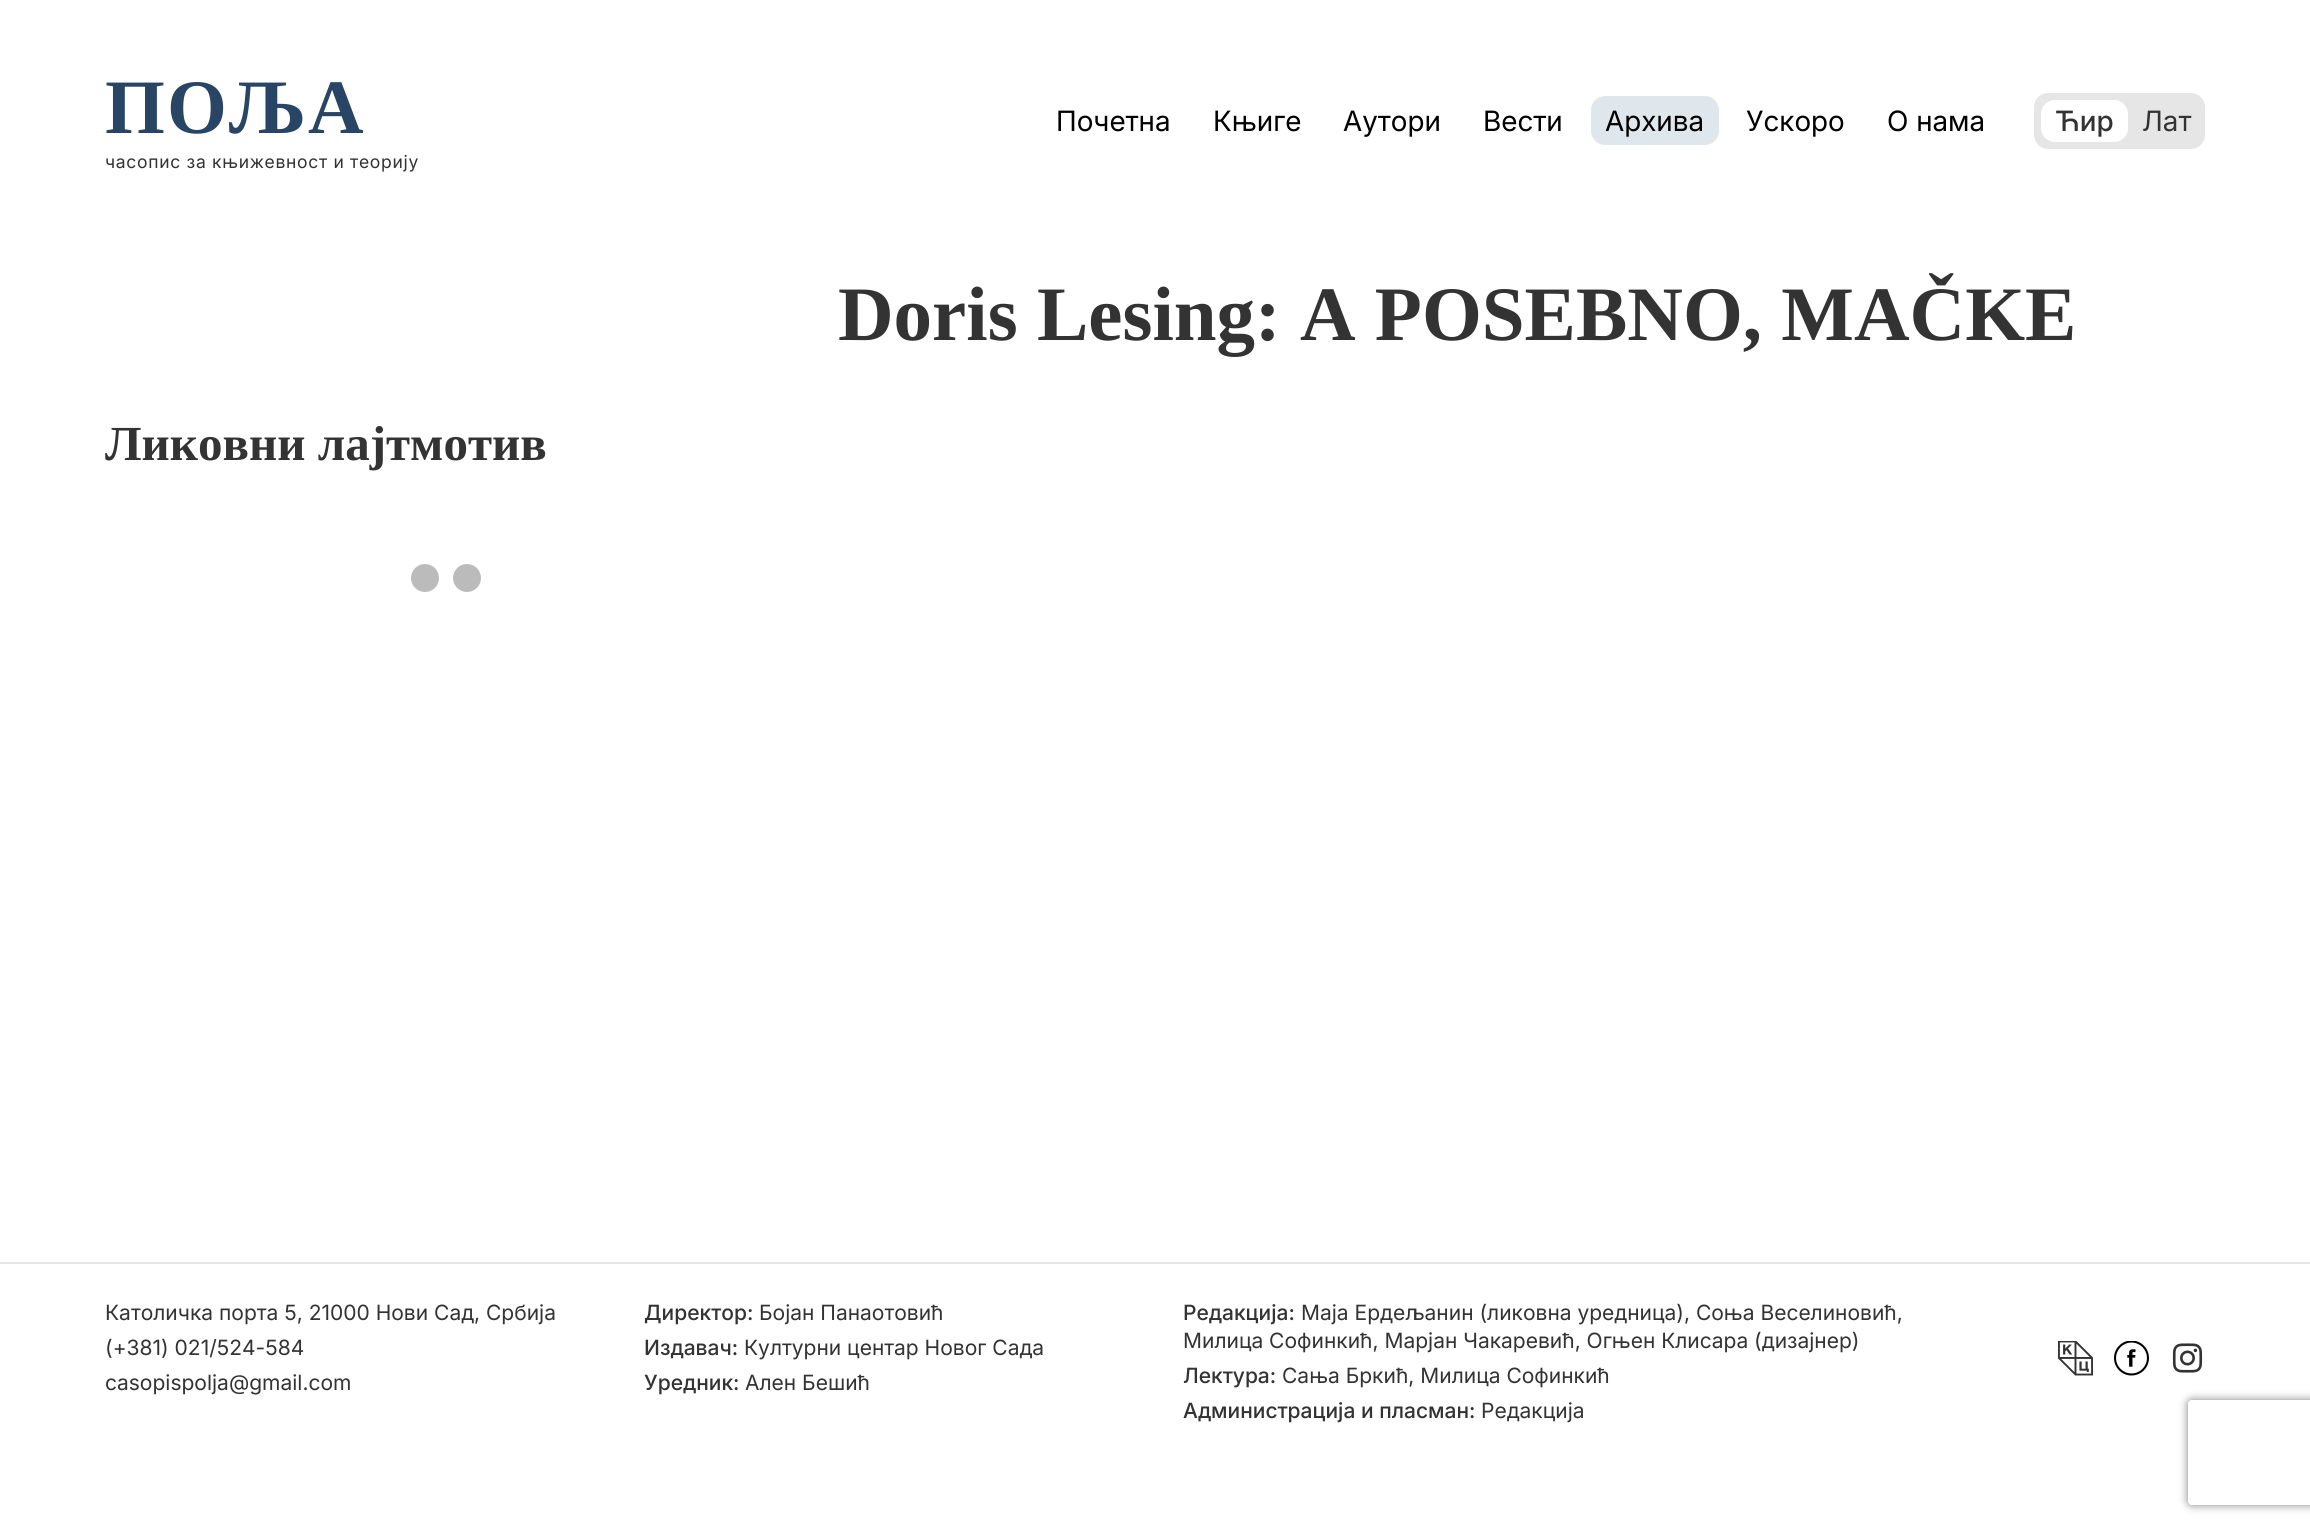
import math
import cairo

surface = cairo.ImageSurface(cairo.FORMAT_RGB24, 2310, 1529)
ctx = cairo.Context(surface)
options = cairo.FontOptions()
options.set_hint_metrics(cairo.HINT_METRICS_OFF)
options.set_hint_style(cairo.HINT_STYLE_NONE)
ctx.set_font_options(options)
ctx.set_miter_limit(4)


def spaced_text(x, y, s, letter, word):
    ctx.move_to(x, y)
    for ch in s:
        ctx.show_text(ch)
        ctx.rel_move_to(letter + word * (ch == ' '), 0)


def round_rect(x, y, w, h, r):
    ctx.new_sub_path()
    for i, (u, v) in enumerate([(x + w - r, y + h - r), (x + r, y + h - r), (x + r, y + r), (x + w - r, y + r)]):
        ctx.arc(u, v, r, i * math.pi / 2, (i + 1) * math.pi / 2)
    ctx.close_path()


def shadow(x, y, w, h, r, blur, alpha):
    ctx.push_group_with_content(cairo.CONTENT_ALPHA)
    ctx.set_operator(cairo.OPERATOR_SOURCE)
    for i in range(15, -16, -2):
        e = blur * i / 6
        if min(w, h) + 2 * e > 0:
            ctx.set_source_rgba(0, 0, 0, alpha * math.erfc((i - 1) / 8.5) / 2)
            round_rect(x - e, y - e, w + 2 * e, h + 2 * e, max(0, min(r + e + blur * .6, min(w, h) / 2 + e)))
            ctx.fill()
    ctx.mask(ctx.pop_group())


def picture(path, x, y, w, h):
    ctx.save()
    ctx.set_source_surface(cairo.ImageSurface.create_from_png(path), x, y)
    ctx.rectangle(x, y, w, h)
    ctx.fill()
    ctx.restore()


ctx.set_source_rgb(1, 1, 1)
ctx.paint()
ctx.select_font_face("Liberation Serif", cairo.FONT_SLANT_NORMAL, cairo.FONT_WEIGHT_BOLD)
ctx.set_font_size(77)
ctx.set_source_rgb(0.161, 0.271, 0.4)
spaced_text(105, 133, "ПОЉА", 2, 0)
ctx.select_font_face("Inter")
ctx.set_font_size(17.5)
ctx.set_source_rgb(0.2, 0.2, 0.2)
spaced_text(105, 168, "часопис за књижевност и теорију", 0.7, 0)
ctx.select_font_face("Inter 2")
ctx.set_font_size(28)
ctx.set_source_rgb(0, 0, 0)
ctx.move_to(1056, 131)
ctx.show_text("Почетна")
ctx.move_to(1213, 131)
ctx.show_text("Књиге")
ctx.move_to(1343, 131)
ctx.show_text("Аутори")
ctx.move_to(1483, 131)
ctx.show_text("Вести")
ctx.set_source_rgb(0.878, 0.906, 0.922)
round_rect(1591, 96, 128, 49, 14)
ctx.fill()
ctx.set_source_rgb(0, 0, 0)
ctx.move_to(1605, 131)
ctx.show_text("Архива")
ctx.move_to(1746, 131)
ctx.show_text("Ускоро")
ctx.move_to(1887, 131)
ctx.show_text("О нама")
ctx.set_source_rgb(0.902, 0.902, 0.902)
round_rect(2034, 93, 171, 56, 14)
ctx.fill()
ctx.set_source_rgb(1, 1, 1)
round_rect(2041, 100, 87, 42, 14)
ctx.fill()
ctx.select_font_face("Inter 2 Medium")
ctx.set_source_rgb(0.2, 0.2, 0.2)
ctx.move_to(2055, 131)
ctx.show_text("Ћир")
ctx.select_font_face("Inter 2")
ctx.move_to(2142, 131)
ctx.show_text("Лат")
ctx.select_font_face("Liberation Serif", cairo.FONT_SLANT_NORMAL, cairo.FONT_WEIGHT_BOLD)
ctx.set_font_size(77)
ctx.move_to(838, 340)
ctx.show_text("Doris Lesing: A POSEBNO, MAČKE")
ctx.set_font_size(49)
ctx.move_to(105, 460)
ctx.show_text("Ликовни лајтмотив")
ctx.set_source_rgb(0.733, 0.733, 0.733)
ctx.new_path()
ctx.arc(425, 578, 14, 0, 2 * math.pi)
ctx.fill()
ctx.arc(467, 578, 14, 0, 2 * math.pi)
ctx.fill()
ctx.set_source_rgb(0.902, 0.902, 0.902)
ctx.rectangle(0, 1262, 2310, 2)
ctx.fill()
ctx.select_font_face("Inter")
ctx.set_font_size(21)
ctx.set_source_rgb(0.2, 0.2, 0.2)
ctx.move_to(105, 1320)
ctx.show_text("Католичка порта 5, 21000 Нови Сад, Србија")
ctx.move_to(105, 1355)
ctx.show_text("(+381) 021/524-584")
ctx.move_to(105, 1390)
ctx.show_text("casopispolja@gmail.com")
ctx.select_font_face("Inter Medium")
ctx.move_to(644, 1320)
ctx.show_text("Директор:")
ctx.select_font_face("Inter")
ctx.move_to(759, 1320)
ctx.show_text("Бојан Панаотовић")
ctx.select_font_face("Inter Medium")
ctx.move_to(644, 1355)
ctx.show_text("Издавач:")
ctx.select_font_face("Inter")
ctx.move_to(744, 1355)
ctx.show_text("Културни центар Новог Сада")
ctx.select_font_face("Inter Medium")
ctx.move_to(644, 1390)
ctx.show_text("Уредник:")
ctx.select_font_face("Inter")
ctx.move_to(745, 1390)
ctx.show_text("Ален Бешић")
ctx.select_font_face("Inter Medium")
ctx.move_to(1183, 1320)
ctx.show_text("Редакција:")
ctx.select_font_face("Inter")
ctx.move_to(1301, 1320)
ctx.show_text("Маја Ердељанин (ликовна уредница), Соња Веселиновић,")
ctx.move_to(1183, 1348)
ctx.show_text("Милица Софинкић, Марјан Чакаревић, Огњен Клисара (дизајнер)")
ctx.select_font_face("Inter Medium")
ctx.move_to(1183, 1383)
ctx.show_text("Лектура:")
ctx.select_font_face("Inter")
ctx.move_to(1282, 1383)
ctx.show_text("Сања Бркић, Милица Софинкић")
ctx.select_font_face("Inter Medium")
ctx.move_to(1183, 1418)
ctx.show_text("Администрација и пласман:")
ctx.select_font_face("Inter")
ctx.move_to(1481, 1418)
ctx.show_text("Редакција")
picture("img1.png", 2058, 1341, 35, 35)
picture("img2.png", 2114, 1341, 35, 35)
picture("img3.png", 2172, 1343, 31, 30)
ctx.save()
ctx.set_fill_rule(cairo.FILL_RULE_EVEN_ODD)
ctx.new_path()
ctx.move_to(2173, 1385)
ctx.line_to(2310, 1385)
ctx.line_to(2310, 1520)
ctx.line_to(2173, 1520)
ctx.close_path()
ctx.move_to(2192, 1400)
ctx.line_to(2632, 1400)
ctx.curve_to(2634, 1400, 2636, 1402, 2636, 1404)
ctx.line_to(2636, 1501)
ctx.curve_to(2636, 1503, 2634, 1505, 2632, 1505)
ctx.line_to(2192, 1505)
ctx.curve_to(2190, 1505, 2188, 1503, 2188, 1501)
ctx.line_to(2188, 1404)
ctx.curve_to(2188, 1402, 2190, 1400, 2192, 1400)
ctx.close_path()
ctx.clip()
ctx.set_source_rgb(0.502, 0.502, 0.502)
shadow(2188, 1400, 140, 105, 4, 4.5, 1)
ctx.restore()
surface.write_to_png("page.png")
